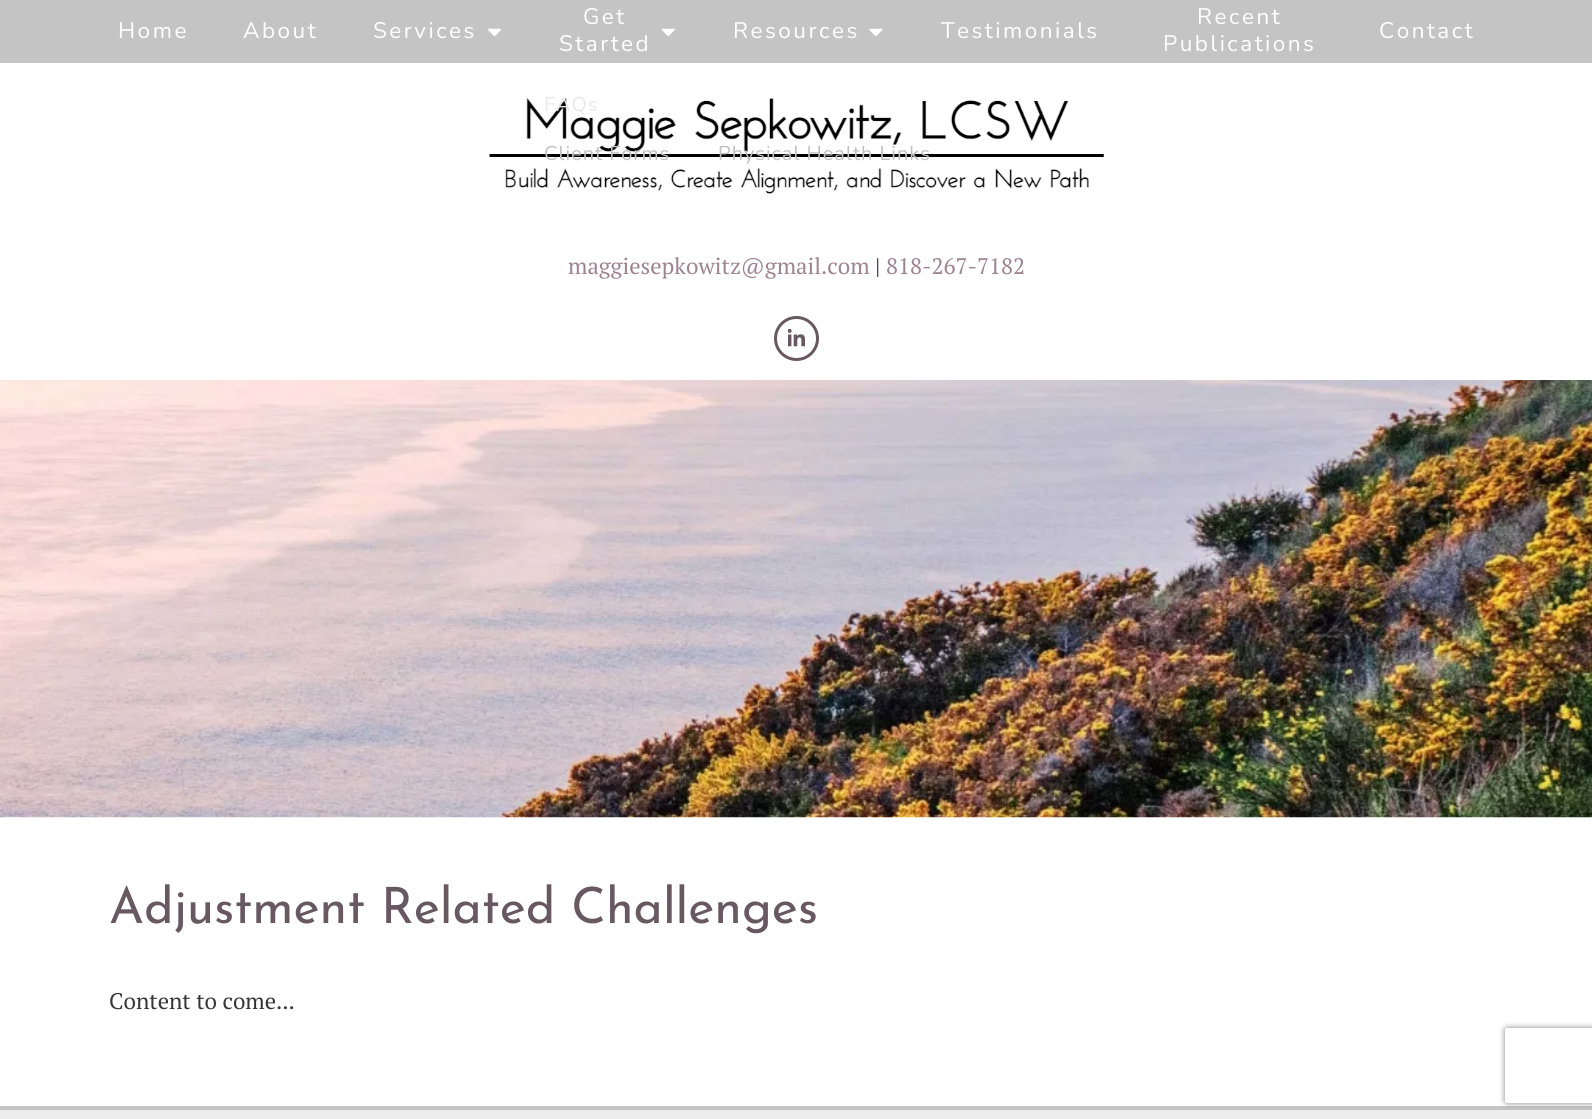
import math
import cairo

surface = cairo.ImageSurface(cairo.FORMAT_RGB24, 1592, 1119)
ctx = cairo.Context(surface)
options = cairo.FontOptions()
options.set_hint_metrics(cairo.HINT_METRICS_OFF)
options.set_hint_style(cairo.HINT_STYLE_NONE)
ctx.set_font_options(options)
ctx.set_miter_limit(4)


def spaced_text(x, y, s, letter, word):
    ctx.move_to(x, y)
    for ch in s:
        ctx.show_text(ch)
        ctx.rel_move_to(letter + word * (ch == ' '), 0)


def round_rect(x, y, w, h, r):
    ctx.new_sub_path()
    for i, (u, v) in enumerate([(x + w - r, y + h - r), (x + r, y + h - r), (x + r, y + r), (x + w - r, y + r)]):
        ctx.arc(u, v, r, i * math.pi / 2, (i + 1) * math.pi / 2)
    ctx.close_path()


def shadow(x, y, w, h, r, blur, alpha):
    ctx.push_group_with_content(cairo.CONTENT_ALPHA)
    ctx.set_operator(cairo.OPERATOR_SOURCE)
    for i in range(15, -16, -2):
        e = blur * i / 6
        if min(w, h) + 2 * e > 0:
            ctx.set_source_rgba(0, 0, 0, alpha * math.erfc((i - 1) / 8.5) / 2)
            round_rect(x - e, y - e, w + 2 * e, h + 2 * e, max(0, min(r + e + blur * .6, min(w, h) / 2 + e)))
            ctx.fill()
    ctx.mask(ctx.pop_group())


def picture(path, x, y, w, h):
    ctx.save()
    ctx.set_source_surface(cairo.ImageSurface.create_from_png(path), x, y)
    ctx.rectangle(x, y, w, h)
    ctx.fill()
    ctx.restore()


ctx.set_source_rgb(1, 1, 1)
ctx.paint()
ctx.set_source_rgb(0.769, 0.769, 0.769)
ctx.rectangle(0, 0, 1592, 63)
ctx.fill()
ctx.select_font_face("Nunito")
ctx.set_font_size(22.5)
ctx.set_source_rgb(1, 1, 1)
spaced_text(118, 38, "Home", 2.5, 0)
spaced_text(243, 38, "About", 2.5, 0)
spaced_text(373, 38, "Services", 2.5, 0)
picture("img1.png", 488, 28, 13, 9)
spaced_text(583, 24, "Get", 2.5, 0)
picture("img2.png", 661, 28, 14, 8)
spaced_text(559, 51, "Started", 2.5, 0)
picture("img4.png", 489, 98, 615, 96)
ctx.set_font_size(20)
ctx.set_source_rgb(0.91, 0.91, 0.91)
spaced_text(544, 111, "FAQs", 1, 0)
ctx.set_source_rgb(0.753, 0.753, 0.753)
spaced_text(544, 160, "Client Forms", 1, 0)
ctx.set_font_size(22.5)
ctx.set_source_rgb(1, 1, 1)
spaced_text(733, 38, "Resources", 2.5, 0)
picture("img3.png", 869, 28, 14, 8)
ctx.set_font_size(20)
ctx.set_source_rgb(0.753, 0.753, 0.753)
spaced_text(718, 160, "Physical Health Links", 1, 0)
ctx.set_font_size(22.5)
ctx.set_source_rgb(1, 1, 1)
spaced_text(941, 38, "Testimonials", 2.5, 0)
spaced_text(1197, 24, "Recent", 2.5, 0)
spaced_text(1163, 51, "Publications", 2.5, 0)
spaced_text(1379, 38, "Contact", 2.5, 0)
ctx.select_font_face("PT Serif")
ctx.set_source_rgb(0.62, 0.518, 0.553)
ctx.move_to(568, 274)
ctx.show_text("maggiesepkowitz@gmail.com")
ctx.set_source_rgb(0.212, 0.212, 0.212)
ctx.move_to(875, 274)
ctx.show_text("|")
ctx.set_source_rgb(0.62, 0.518, 0.553)
ctx.move_to(886, 274)
ctx.show_text("818-267-7182")
ctx.new_path()
ctx.arc(796.5, 338.5, 21, 0, 2 * math.pi)
ctx.set_source_rgb(0.408, 0.349, 0.376)
ctx.set_line_width(3)
ctx.stroke()
picture("img5.png", 788, 329, 17, 18)
picture("img6.png", 0, 380, 1592, 438)
ctx.select_font_face("Josefin Sans")
ctx.set_font_size(50)
ctx.move_to(109, 923)
ctx.show_text("Adjustment Related Challenges")
ctx.select_font_face("PT Serif")
ctx.set_font_size(22.5)
ctx.set_source_rgb(0.212, 0.212, 0.212)
ctx.move_to(109, 1009)
ctx.show_text("Content to come...")
ctx.set_source_rgb(0.929, 0.929, 0.929)
ctx.rectangle(0, 1110, 1592, 9)
ctx.fill()
ctx.set_source_rgb(0.769, 0.769, 0.769)
ctx.rectangle(0, 1106, 1592, 4)
ctx.fill()
ctx.save()
ctx.set_fill_rule(cairo.FILL_RULE_EVEN_ODD)
ctx.new_path()
ctx.move_to(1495, 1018)
ctx.line_to(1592, 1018)
ctx.line_to(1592, 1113)
ctx.line_to(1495, 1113)
ctx.close_path()
ctx.move_to(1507.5, 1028)
ctx.line_to(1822.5, 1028)
ctx.curve_to(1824, 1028, 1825, 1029, 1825, 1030.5)
ctx.line_to(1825, 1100.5)
ctx.curve_to(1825, 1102, 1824, 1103, 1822.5, 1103)
ctx.line_to(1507.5, 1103)
ctx.curve_to(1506, 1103, 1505, 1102, 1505, 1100.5)
ctx.line_to(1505, 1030.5)
ctx.curve_to(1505, 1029, 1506, 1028, 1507.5, 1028)
ctx.close_path()
ctx.clip()
ctx.set_source_rgb(0.502, 0.502, 0.502)
shadow(1505, 1028, 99, 75, 2.5, 3, 1)
ctx.restore()
surface.write_to_png("page.png")
